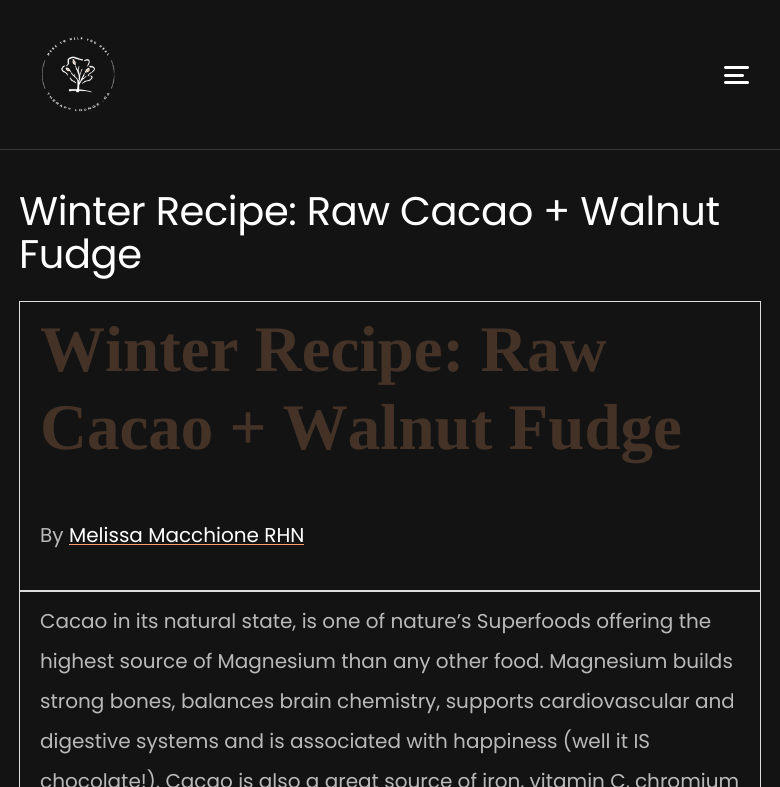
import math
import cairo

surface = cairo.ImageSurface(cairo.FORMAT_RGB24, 780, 787)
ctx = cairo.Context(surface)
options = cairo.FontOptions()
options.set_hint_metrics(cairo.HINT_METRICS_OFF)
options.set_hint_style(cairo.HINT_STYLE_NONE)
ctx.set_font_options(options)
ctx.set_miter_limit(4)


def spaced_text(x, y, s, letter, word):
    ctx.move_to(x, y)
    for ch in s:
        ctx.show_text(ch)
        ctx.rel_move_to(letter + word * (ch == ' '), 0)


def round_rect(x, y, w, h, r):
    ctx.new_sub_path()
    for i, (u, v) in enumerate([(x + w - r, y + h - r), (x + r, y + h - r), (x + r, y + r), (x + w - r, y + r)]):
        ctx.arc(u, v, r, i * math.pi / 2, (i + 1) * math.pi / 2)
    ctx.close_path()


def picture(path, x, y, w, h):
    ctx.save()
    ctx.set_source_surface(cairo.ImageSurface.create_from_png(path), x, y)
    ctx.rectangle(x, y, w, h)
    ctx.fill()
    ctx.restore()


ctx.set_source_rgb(0.078, 0.078, 0.078)
ctx.paint()
ctx.set_source_rgb(0.216, 0.216, 0.216)
ctx.rectangle(0, 149, 780, 1)
ctx.fill()
picture("img1.png", 42, 37, 73, 75)
ctx.set_source_rgb(1, 1, 1)
round_rect(724, 66, 25, 3, 1.5)
ctx.fill()
round_rect(724, 74, 20, 3, 1.5)
ctx.fill()
round_rect(724, 81, 25, 3, 1.5)
ctx.fill()
ctx.select_font_face("Poppins")
ctx.set_font_size(40)
spaced_text(19, 225, "Winter Recipe: Raw Cacao + Walnut", -0.4, 0)
spaced_text(19, 268, "Fudge", -0.4, 0)
ctx.set_source_rgb(0.871, 0.871, 0.871)
ctx.rectangle(19, 301, 742, 1)
ctx.fill()
ctx.rectangle(760, 301, 1, 290)
ctx.fill()
ctx.rectangle(19, 590, 742, 2)
ctx.fill()
ctx.rectangle(19, 301, 1, 486)
ctx.fill()
ctx.select_font_face("Liberation Serif", cairo.FONT_SLANT_NORMAL, cairo.FONT_WEIGHT_BOLD)
ctx.set_font_size(65)
ctx.set_source_rgb(0.267, 0.196, 0.153)
ctx.move_to(40, 371)
ctx.show_text("Winter Recipe: Raw")
ctx.move_to(40, 449)
ctx.show_text("Cacao + Walnut Fudge")
ctx.select_font_face("Poppins")
ctx.set_font_size(20)
ctx.set_source_rgb(0.725, 0.725, 0.725)
ctx.move_to(40, 542)
ctx.show_text("By")
ctx.set_source_rgb(1, 1, 1)
ctx.move_to(69, 542)
ctx.show_text("Melissa Macchione RHN")
ctx.set_source_rgb(1, 0.616, 0.435)
ctx.rectangle(69, 544, 235, 1)
ctx.fill()
ctx.set_source_rgb(0.871, 0.871, 0.871)
ctx.rectangle(760, 591, 1, 196)
ctx.fill()
ctx.set_source_rgb(0.725, 0.725, 0.725)
ctx.move_to(40, 628)
ctx.show_text("Cacao in its natural state, is one of nature’s Superfoods offering the")
ctx.move_to(40, 668)
ctx.show_text("highest source of Magnesium than any other food. Magnesium builds")
ctx.move_to(40, 708)
ctx.show_text("strong bones, balances brain chemistry, supports cardiovascular and")
ctx.move_to(40, 748)
ctx.show_text("digestive systems and is associated with happiness (well it IS")
ctx.move_to(40, 788)
ctx.show_text("chocolate!). Cacao is also a great source of iron, vitamin C, chromium")
surface.write_to_png("page.png")
